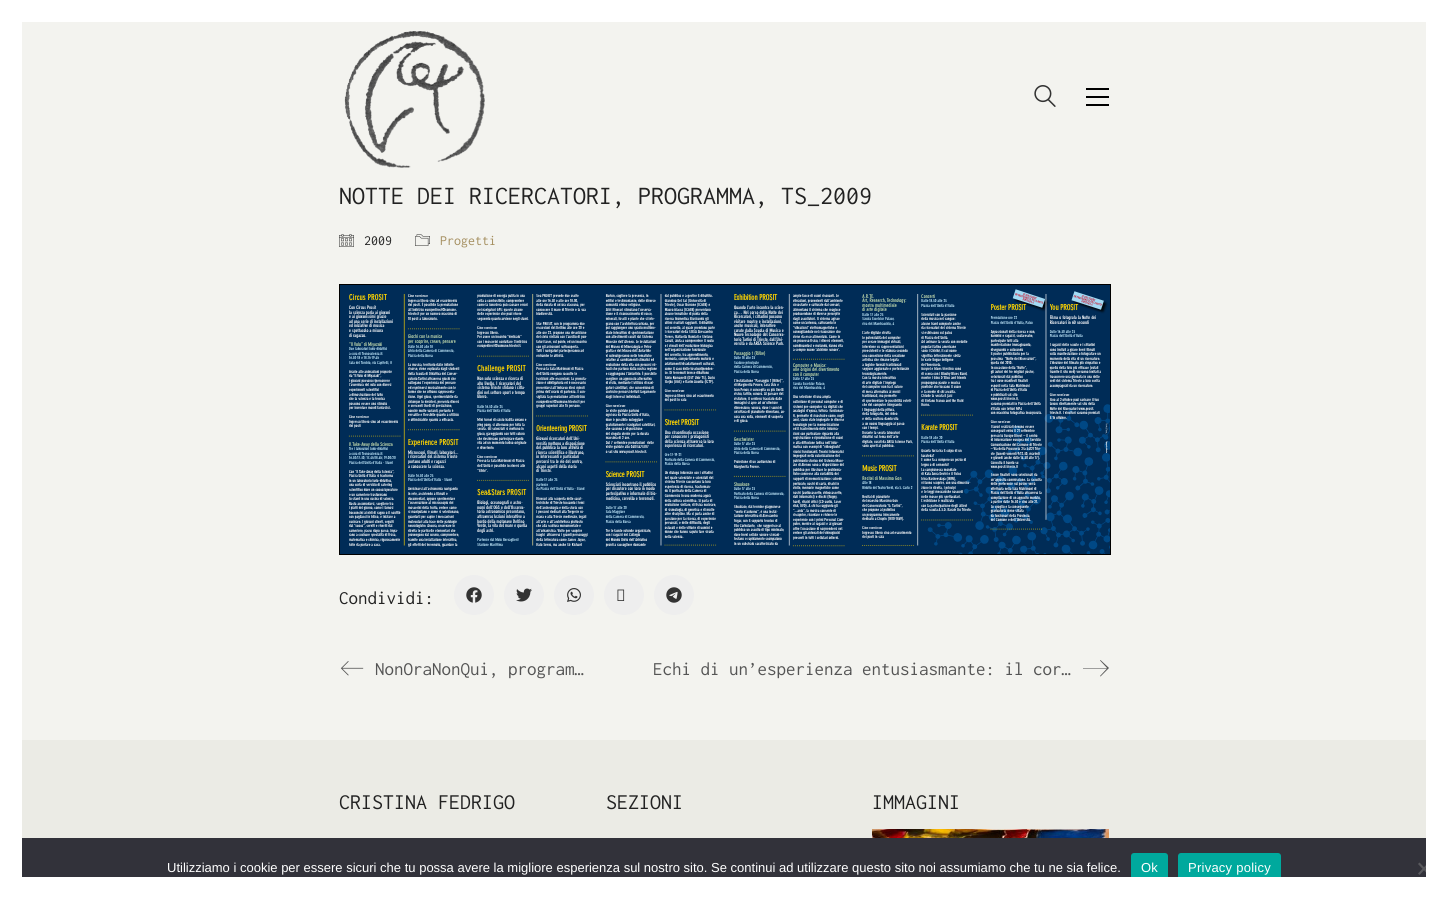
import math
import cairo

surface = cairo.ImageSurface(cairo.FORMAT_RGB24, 1448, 899)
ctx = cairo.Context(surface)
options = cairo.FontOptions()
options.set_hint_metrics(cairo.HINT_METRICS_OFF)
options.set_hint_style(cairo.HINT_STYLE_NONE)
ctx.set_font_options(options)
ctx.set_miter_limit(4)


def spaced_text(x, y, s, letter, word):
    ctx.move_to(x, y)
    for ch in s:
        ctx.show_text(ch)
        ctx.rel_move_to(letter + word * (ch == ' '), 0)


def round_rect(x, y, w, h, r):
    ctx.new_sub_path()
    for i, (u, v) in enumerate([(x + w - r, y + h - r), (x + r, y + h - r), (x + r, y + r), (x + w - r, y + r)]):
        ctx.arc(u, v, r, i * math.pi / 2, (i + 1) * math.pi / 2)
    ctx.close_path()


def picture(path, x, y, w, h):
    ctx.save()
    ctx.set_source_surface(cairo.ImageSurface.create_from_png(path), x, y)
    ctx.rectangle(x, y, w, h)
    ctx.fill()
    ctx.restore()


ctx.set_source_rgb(0.953, 0.953, 0.937)
ctx.paint()
ctx.set_source_rgb(1, 1, 1)
ctx.rectangle(0, 0, 22, 899)
ctx.fill()
ctx.rectangle(22, 0, 1404, 22)
ctx.fill()
ctx.set_source_rgb(0.196, 0.196, 0.227)
ctx.rectangle(22, 838, 1404, 39)
ctx.fill()
ctx.set_source_rgb(0.349, 0.349, 0.365)
ctx.new_path()
ctx.move_to(1428.5, 862.5)
ctx.line_to(1430, 864)
ctx.line_to(1419.5, 875)
ctx.line_to(1418, 873.5)
ctx.close_path()
ctx.fill()
ctx.new_path()
ctx.move_to(1418, 864)
ctx.line_to(1419.5, 862.5)
ctx.line_to(1430, 873.5)
ctx.line_to(1428.5, 875)
ctx.close_path()
ctx.fill()
ctx.set_source_rgb(1, 1, 1)
ctx.rectangle(1426, 0, 22, 877)
ctx.fill()
ctx.set_source_rgb(0, 0.663, 0.616)
round_rect(1131, 853, 37, 30, 3)
ctx.fill()
round_rect(1178, 853, 103, 30, 3)
ctx.fill()
ctx.set_source_rgb(1, 1, 1)
ctx.rectangle(22, 877, 1426, 22)
ctx.fill()
picture("img1.png", 344, 31, 141, 137)
picture("img2.png", 1034, 85, 22, 22)
ctx.set_source_rgb(0, 0, 0)
ctx.rectangle(1086, 88, 23, 2)
ctx.fill()
ctx.rectangle(1086, 96, 23, 2)
ctx.fill()
ctx.rectangle(1086, 104, 23, 2)
ctx.fill()
ctx.select_font_face("Inconsolata")
ctx.set_font_size(26)
ctx.set_source_rgb(0.133, 0.133, 0.133)
ctx.move_to(339, 204)
ctx.show_text("NOTTE DEI RICERCATORI, PROGRAMMA, TS_2009")
picture("img3.png", 339, 234, 15, 13)
ctx.set_font_size(14)
ctx.move_to(364, 245)
ctx.show_text("2009")
picture("img4.png", 415, 234, 15, 12)
ctx.set_source_rgb(0.647, 0.561, 0.376)
ctx.move_to(440, 245)
ctx.show_text("Progetti")
ctx.rectangle(339.5, 284.5, 771, 270)
ctx.set_source_rgb(0, 0, 0)
ctx.set_line_width(1)
ctx.stroke()
picture("img5.png", 340, 285, 770, 269)
ctx.set_font_size(19)
ctx.set_source_rgb(0.133, 0.133, 0.133)
ctx.move_to(339, 604)
ctx.show_text("Condividi:")
ctx.set_source_rgb(0.933, 0.933, 0.933)
ctx.new_path()
ctx.arc(474, 595, 20, 0, 2 * math.pi)
ctx.fill()
picture("img6.png", 466, 587, 16, 16)
ctx.arc(524, 595, 20, 0, 2 * math.pi)
ctx.fill()
picture("img7.png", 516, 588, 16, 14)
ctx.arc(574, 595, 20, 0, 2 * math.pi)
ctx.fill()
picture("img8.png", 567, 588, 14, 14)
ctx.arc(624, 595, 20, 0, 2 * math.pi)
ctx.fill()
picture("img9.png", 617, 589, 8, 12)
ctx.arc(674, 595, 20, 0, 2 * math.pi)
ctx.fill()
picture("img10.png", 666, 587, 16, 16)
picture("img11.png", 340, 661, 24, 15)
ctx.set_source_rgb(0.333, 0.333, 0.333)
ctx.move_to(375, 675)
ctx.show_text("NonOraNonQui, program…")
ctx.move_to(653, 675)
ctx.show_text("Echi di un’esperienza entusiasmante: il cor…")
ctx.new_path()
ctx.move_to(1100.5, 660)
ctx.line_to(1100, 660.5)
ctx.line_to(1107, 668)
ctx.line_to(1083, 668)
ctx.line_to(1083, 668.5)
ctx.line_to(1107, 668.5)
ctx.line_to(1100, 676)
ctx.line_to(1100.5, 676.5)
ctx.line_to(1109, 668)
ctx.close_path()
ctx.fill()
ctx.set_source_rgb(0.918, 0.918, 0.898)
ctx.rectangle(22, 740, 1404, 98)
ctx.fill()
ctx.set_font_size(22)
ctx.set_source_rgb(0.133, 0.133, 0.133)
ctx.move_to(339, 809)
ctx.show_text("CRISTINA FEDRIGO")
ctx.move_to(606, 809)
ctx.show_text("SEZIONI")
ctx.move_to(872, 809)
ctx.show_text("IMMAGINI")
picture("img12.png", 872, 829, 237, 9)
ctx.select_font_face("Liberation Sans")
ctx.set_font_size(13)
ctx.set_source_rgb(1, 1, 1)
ctx.move_to(167, 872)
ctx.show_text("Utilizziamo i cookie per essere sicuri che tu possa avere la migliore esperienza sul nostro sito. Se continui ad utilizzare questo sito noi assumiamo che tu ne sia felice.")
spaced_text(1141, 872, "Ok", 0.25, 0)
spaced_text(1188, 872, "Privacy policy", 0.25, 0)
surface.write_to_png("page.png")
